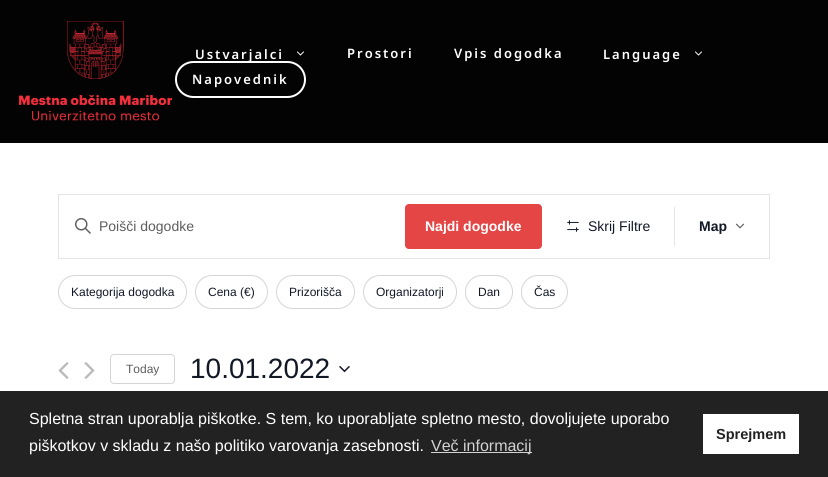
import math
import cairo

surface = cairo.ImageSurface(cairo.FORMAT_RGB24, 828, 477)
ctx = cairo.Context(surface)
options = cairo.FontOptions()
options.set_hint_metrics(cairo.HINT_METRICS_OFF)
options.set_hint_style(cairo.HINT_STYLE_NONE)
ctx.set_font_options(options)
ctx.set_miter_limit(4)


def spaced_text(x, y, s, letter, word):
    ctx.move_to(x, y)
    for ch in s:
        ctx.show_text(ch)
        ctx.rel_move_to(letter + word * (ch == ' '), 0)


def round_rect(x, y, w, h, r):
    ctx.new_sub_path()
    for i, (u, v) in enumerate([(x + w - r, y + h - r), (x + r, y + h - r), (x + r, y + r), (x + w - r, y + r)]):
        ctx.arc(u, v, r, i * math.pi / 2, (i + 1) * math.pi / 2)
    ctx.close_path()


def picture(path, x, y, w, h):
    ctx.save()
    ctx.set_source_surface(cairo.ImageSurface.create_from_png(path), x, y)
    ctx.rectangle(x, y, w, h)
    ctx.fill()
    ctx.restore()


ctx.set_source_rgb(1, 1, 1)
ctx.paint()
ctx.set_source_rgb(0.012, 0.012, 0.012)
ctx.rectangle(0, 0, 828, 143)
ctx.fill()
picture("img1.png", 19, 21, 154, 100)
ctx.select_font_face("Noto Sans SemiBold")
ctx.set_font_size(13)
ctx.set_source_rgb(1, 1, 1)
spaced_text(195, 59, "Ustvarjalci", 2, 0)
picture("img2.png", 297, 51, 7, 5)
spaced_text(347, 58, "Prostori", 2, 0)
spaced_text(454, 58, "Vpis dogodka", 2, 0)
spaced_text(603, 59, "Language", 2, 0)
picture("img2.png", 695, 51, 7, 5)
round_rect(176, 62, 129, 35, 17.5)
ctx.stroke()
spaced_text(192, 84, "Napovednik", 2, 0)
ctx.rectangle(58.5, 194.5, 711, 64)
ctx.set_source_rgb(0.894, 0.894, 0.894)
ctx.set_line_width(1)
ctx.stroke()
picture("img3.png", 75, 218, 16, 16)
ctx.select_font_face("Liberation Sans")
ctx.set_font_size(14)
ctx.set_source_rgb(0.365, 0.365, 0.365)
ctx.move_to(99, 231)
ctx.show_text("Poišči dogodke")
ctx.set_source_rgb(0.894, 0.275, 0.275)
round_rect(405, 204, 137, 45, 4)
ctx.fill()
ctx.select_font_face("Liberation Sans", cairo.FONT_SLANT_NORMAL, cairo.FONT_WEIGHT_BOLD)
ctx.set_source_rgb(1, 1, 1)
ctx.move_to(425, 231)
ctx.show_text("Najdi dogodke")
ctx.set_source_rgb(0.894, 0.894, 0.894)
ctx.rectangle(674, 207, 1, 39)
ctx.fill()
picture("img4.png", 567, 220, 12, 12)
ctx.select_font_face("Liberation Sans")
ctx.set_source_rgb(0.078, 0.094, 0.153)
ctx.move_to(588, 231)
ctx.show_text("Skrij Filtre")
ctx.select_font_face("Liberation Sans", cairo.FONT_SLANT_NORMAL, cairo.FONT_WEIGHT_BOLD)
ctx.move_to(699, 231)
ctx.show_text("Map")
picture("img5.png", 735, 223, 10, 6)
round_rect(58.5, 275.5, 128, 33, 16.5)
ctx.set_source_rgb(0.835, 0.835, 0.835)
ctx.stroke()
ctx.select_font_face("Liberation Sans")
ctx.set_font_size(12)
ctx.set_source_rgb(0.078, 0.094, 0.153)
ctx.move_to(71, 296)
ctx.show_text("Kategorija dogodka")
round_rect(195.5, 275.5, 72, 33, 16.5)
ctx.set_source_rgb(0.835, 0.835, 0.835)
ctx.stroke()
ctx.set_source_rgb(0.078, 0.094, 0.153)
ctx.move_to(208, 296)
ctx.show_text("Cena (€)")
round_rect(276.5, 275.5, 78, 33, 16.5)
ctx.set_source_rgb(0.835, 0.835, 0.835)
ctx.stroke()
ctx.set_source_rgb(0.078, 0.094, 0.153)
ctx.move_to(289, 296)
ctx.show_text("Prizorišča")
round_rect(363.5, 275.5, 93, 33, 16.5)
ctx.set_source_rgb(0.835, 0.835, 0.835)
ctx.stroke()
ctx.set_source_rgb(0.078, 0.094, 0.153)
ctx.move_to(376, 296)
ctx.show_text("Organizatorji")
round_rect(465.5, 275.5, 47, 33, 16.5)
ctx.set_source_rgb(0.835, 0.835, 0.835)
ctx.stroke()
ctx.set_source_rgb(0.078, 0.094, 0.153)
ctx.move_to(478, 296)
ctx.show_text("Dan")
round_rect(521.5, 275.5, 46, 33, 16.5)
ctx.set_source_rgb(0.835, 0.835, 0.835)
ctx.stroke()
ctx.set_source_rgb(0.078, 0.094, 0.153)
ctx.move_to(534, 296)
ctx.show_text("Čas")
picture("img6.png", 58, 362, 11, 17)
picture("img7.png", 84, 362, 11, 17)
round_rect(110.5, 354.5, 64, 29, 3.5)
ctx.set_source_rgb(0.835, 0.835, 0.835)
ctx.stroke()
ctx.set_source_rgb(0.365, 0.365, 0.365)
ctx.move_to(126, 373)
ctx.show_text("Today")
ctx.set_font_size(28)
ctx.set_source_rgb(0.078, 0.094, 0.153)
ctx.move_to(190, 378)
ctx.show_text("10.01.2022")
picture("img8.png", 339, 365, 11, 8)
ctx.set_source_rgb(0.133, 0.133, 0.133)
ctx.rectangle(0, 391, 828, 86)
ctx.fill()
ctx.set_font_size(16)
ctx.set_source_rgb(1, 1, 1)
ctx.move_to(29, 424)
ctx.show_text("Spletna stran uporablja piškotke. S tem, ko uporabljate spletno mesto, dovoljujete uporabo")
ctx.move_to(29, 451)
ctx.show_text("piškotkov v skladu z našo politiko varovanja zasebnosti.")
ctx.set_source_rgb(0.827, 0.827, 0.827)
ctx.rectangle(431, 452, 101, 1)
ctx.fill()
ctx.move_to(431, 451)
ctx.show_text("Več informacij")
ctx.set_source_rgb(1, 1, 1)
ctx.rectangle(703, 414, 96, 40)
ctx.fill()
ctx.select_font_face("Liberation Sans", cairo.FONT_SLANT_NORMAL, cairo.FONT_WEIGHT_BOLD)
ctx.set_font_size(14.5)
ctx.set_source_rgb(0.133, 0.133, 0.133)
ctx.move_to(716, 439)
ctx.show_text("Sprejmem")
surface.write_to_png("page.png")
